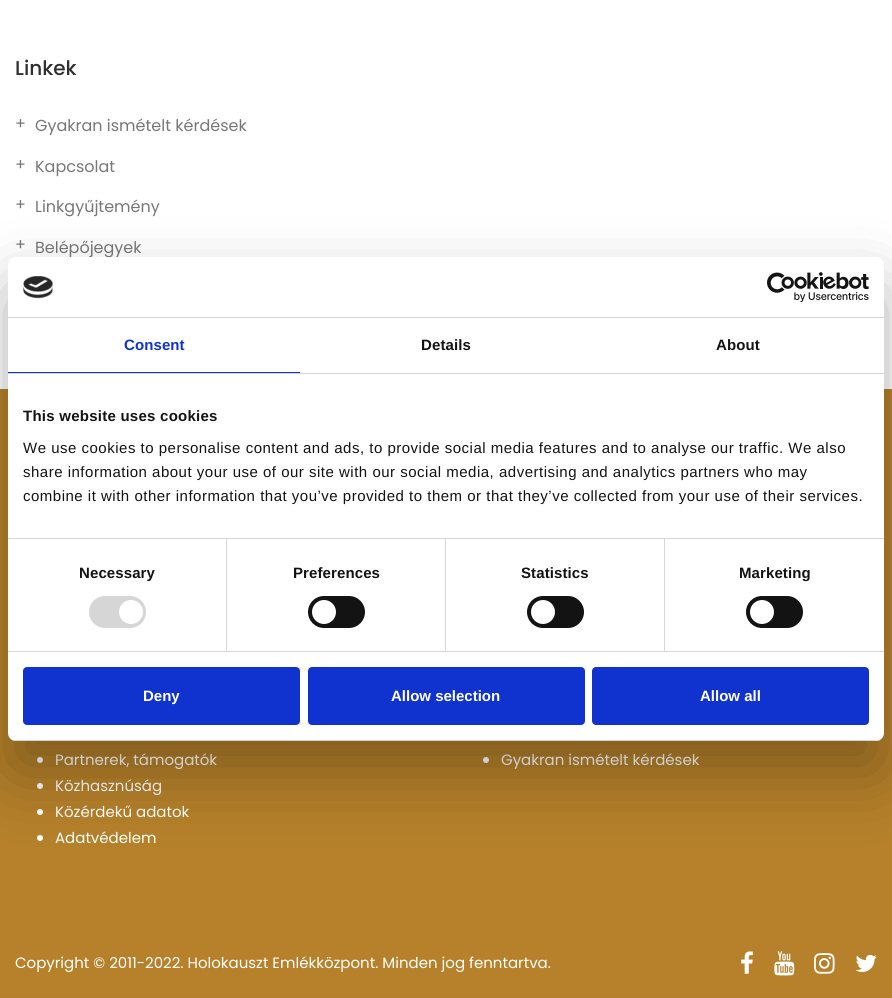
import math
import cairo

surface = cairo.ImageSurface(cairo.FORMAT_RGB24, 892, 998)
ctx = cairo.Context(surface)
options = cairo.FontOptions()
options.set_hint_metrics(cairo.HINT_METRICS_OFF)
options.set_hint_style(cairo.HINT_STYLE_NONE)
ctx.set_font_options(options)
ctx.set_miter_limit(4)


def spaced_text(x, y, s, letter, word):
    ctx.move_to(x, y)
    for ch in s:
        ctx.show_text(ch)
        ctx.rel_move_to(letter + word * (ch == ' '), 0)


def round_rect(x, y, w, h, r):
    ctx.new_sub_path()
    for i, (u, v) in enumerate([(x + w - r, y + h - r), (x + r, y + h - r), (x + r, y + r), (x + w - r, y + r)]):
        ctx.arc(u, v, r, i * math.pi / 2, (i + 1) * math.pi / 2)
    ctx.close_path()


def shadow(x, y, w, h, r, blur, alpha):
    ctx.push_group_with_content(cairo.CONTENT_ALPHA)
    ctx.set_operator(cairo.OPERATOR_SOURCE)
    for i in range(15, -16, -2):
        e = blur * i / 6
        if min(w, h) + 2 * e > 0:
            ctx.set_source_rgba(0, 0, 0, alpha * math.erfc((i - 1) / 8.5) / 2)
            round_rect(x - e, y - e, w + 2 * e, h + 2 * e, max(0, min(r + e + blur * .6, min(w, h) / 2 + e)))
            ctx.fill()
    ctx.mask(ctx.pop_group())


def picture(path, x, y, w, h):
    ctx.save()
    ctx.set_source_surface(cairo.ImageSurface.create_from_png(path), x, y)
    ctx.rectangle(x, y, w, h)
    ctx.fill()
    ctx.restore()


ctx.set_source_rgb(1, 1, 1)
ctx.paint()
ctx.select_font_face("Poppins Medium")
ctx.set_font_size(20)
ctx.set_source_rgb(0.188, 0.18, 0.184)
ctx.move_to(15, 75)
ctx.show_text("Linkek")
ctx.select_font_face("Poppins")
ctx.set_font_size(16)
ctx.set_source_rgb(0.467, 0.467, 0.467)
ctx.move_to(15, 129)
ctx.show_text("+")
ctx.move_to(35, 131)
ctx.show_text("Gyakran ismételt kérdések")
ctx.move_to(15, 170)
ctx.show_text("+")
ctx.move_to(35, 172)
ctx.show_text("Kapcsolat")
ctx.move_to(15, 210)
ctx.show_text("+")
ctx.move_to(35, 212)
ctx.show_text("Linkgyűjtemény")
ctx.move_to(15, 250)
ctx.show_text("+")
ctx.move_to(35, 253)
ctx.show_text("Belépőjegyek")
ctx.set_source_rgb(0.714, 0.506, 0.165)
ctx.rectangle(0, 389, 892, 609)
ctx.fill()
ctx.set_source_rgb(1, 1, 1)
ctx.arc(40, 760, 3, 0, 2 * math.pi)
ctx.fill()
ctx.set_font_size(15)
ctx.move_to(55, 765)
ctx.show_text("Partnerek, támogatók")
ctx.new_path()
ctx.arc(40, 786, 3, 0, 2 * math.pi)
ctx.fill()
ctx.move_to(55, 791)
ctx.show_text("Közhasznúság")
ctx.new_path()
ctx.arc(40, 812, 3, 0, 2 * math.pi)
ctx.fill()
ctx.move_to(55, 817)
ctx.show_text("Közérdekű adatok")
ctx.new_path()
ctx.arc(40, 838, 3, 0, 2 * math.pi)
ctx.fill()
ctx.move_to(55, 843)
ctx.show_text("Adatvédelem")
ctx.new_path()
ctx.arc(486, 760, 3, 0, 2 * math.pi)
ctx.fill()
ctx.move_to(501, 765)
ctx.show_text("Gyakran ismételt kérdések")
ctx.move_to(15, 968)
ctx.show_text("Copyright © 2011-2022. Holokauszt Emlékközpont. Minden jog fenntartva.")
picture("img1.png", 741, 951, 12, 23)
picture("img2.png", 774, 951, 21, 25)
picture("img3.png", 814, 953, 21, 21)
picture("img4.png", 855, 954, 22, 18)
ctx.set_source_rgb(0, 0, 0)
shadow(8, 289, 876, 484, 8, 34, 0.3)
ctx.set_source_rgb(1, 1, 1)
round_rect(8, 257, 876, 484, 8)
ctx.fill()
ctx.set_source_rgb(0.839, 0.839, 0.839)
ctx.rectangle(8, 317, 876, 1)
ctx.fill()
picture("img5.png", 23, 276, 30, 23)
picture("img6.png", 767, 272, 102, 30)
ctx.rectangle(8, 373, 876, 1)
ctx.fill()
ctx.set_source_rgb(0.063, 0.196, 0.812)
ctx.rectangle(8, 372, 292, 1)
ctx.fill()
ctx.select_font_face("Liberation Sans", cairo.FONT_SLANT_NORMAL, cairo.FONT_WEIGHT_BOLD)
spaced_text(124, 350, "Consent", 0.1, 0)
ctx.set_source_rgb(0.078, 0.078, 0.078)
spaced_text(421, 350, "Details", 0.1, 0)
spaced_text(716, 350, "About", 0.1, 0)
ctx.set_source_rgb(0.839, 0.839, 0.839)
ctx.rectangle(8, 538, 876, 1)
ctx.fill()
ctx.set_source_rgb(0.078, 0.078, 0.078)
spaced_text(23, 421, "This website uses cookies", 0.25, 0)
ctx.select_font_face("Liberation Sans")
spaced_text(23, 453, "We use cookies to personalise content and ads, to provide social media features and to analyse our traffic. We also", 0.5, 0)
spaced_text(23, 477, "share information about your use of our site with our social media, advertising and analytics partners who may", 0.5, 0)
spaced_text(23, 501, "combine it with other information that you’ve provided to them or that they’ve collected from your use of their services.", 0.5, 0)
ctx.set_source_rgb(0.839, 0.839, 0.839)
ctx.rectangle(8, 651, 876, 1)
ctx.fill()
ctx.rectangle(226, 539, 1, 112)
ctx.fill()
ctx.select_font_face("Liberation Sans", cairo.FONT_SLANT_NORMAL, cairo.FONT_WEIGHT_BOLD)
ctx.set_source_rgb(0.078, 0.078, 0.078)
spaced_text(79, 578, "Necessary", 0.1, 0)
ctx.set_source_rgb(0.839, 0.839, 0.839)
round_rect(89, 596, 57, 32, 16)
ctx.fill()
ctx.set_source_rgb(1, 1, 1)
ctx.arc(131, 612, 12, 0, 2 * math.pi)
ctx.fill()
ctx.set_source_rgb(0.839, 0.839, 0.839)
ctx.rectangle(445, 539, 1, 112)
ctx.fill()
ctx.set_source_rgb(0.078, 0.078, 0.078)
spaced_text(293, 578, "Preferences", 0.1, 0)
round_rect(308, 596, 57, 32, 16)
ctx.fill()
ctx.set_source_rgb(1, 1, 1)
ctx.arc(324, 612, 12, 0, 2 * math.pi)
ctx.fill()
ctx.set_source_rgb(0.839, 0.839, 0.839)
ctx.rectangle(664, 539, 1, 112)
ctx.fill()
ctx.set_source_rgb(0.078, 0.078, 0.078)
spaced_text(521, 578, "Statistics", 0.1, 0)
round_rect(527, 596, 57, 32, 16)
ctx.fill()
ctx.set_source_rgb(1, 1, 1)
ctx.arc(543, 612, 12, 0, 2 * math.pi)
ctx.fill()
ctx.set_source_rgb(0.078, 0.078, 0.078)
spaced_text(739, 578, "Marketing", 0.1, 0)
round_rect(746, 596, 57, 32, 16)
ctx.fill()
ctx.set_source_rgb(1, 1, 1)
ctx.arc(762, 612, 12, 0, 2 * math.pi)
ctx.fill()
ctx.save()
round_rect(8, 257, 876, 484, 8)
ctx.clip()
ctx.set_source_rgb(0.839, 0.839, 0.839)
ctx.rectangle(8, 740, 876, 1)
ctx.fill()
ctx.restore()
ctx.set_source_rgb(0.063, 0.196, 0.812)
round_rect(24, 668, 275, 56, 3)
ctx.fill_preserve()
ctx.stroke()
ctx.set_source_rgb(1, 1, 1)
ctx.move_to(143, 701)
ctx.show_text("Deny")
ctx.set_source_rgb(0.063, 0.196, 0.812)
round_rect(309, 668, 275, 56, 3)
ctx.fill_preserve()
ctx.stroke()
ctx.set_source_rgb(1, 1, 1)
ctx.move_to(391, 701)
ctx.show_text("Allow selection")
ctx.set_source_rgb(0.063, 0.196, 0.812)
round_rect(593, 668, 275, 56, 3)
ctx.fill_preserve()
ctx.stroke()
ctx.set_source_rgb(1, 1, 1)
ctx.move_to(700, 701)
ctx.show_text("Allow all")
surface.write_to_png("page.png")
